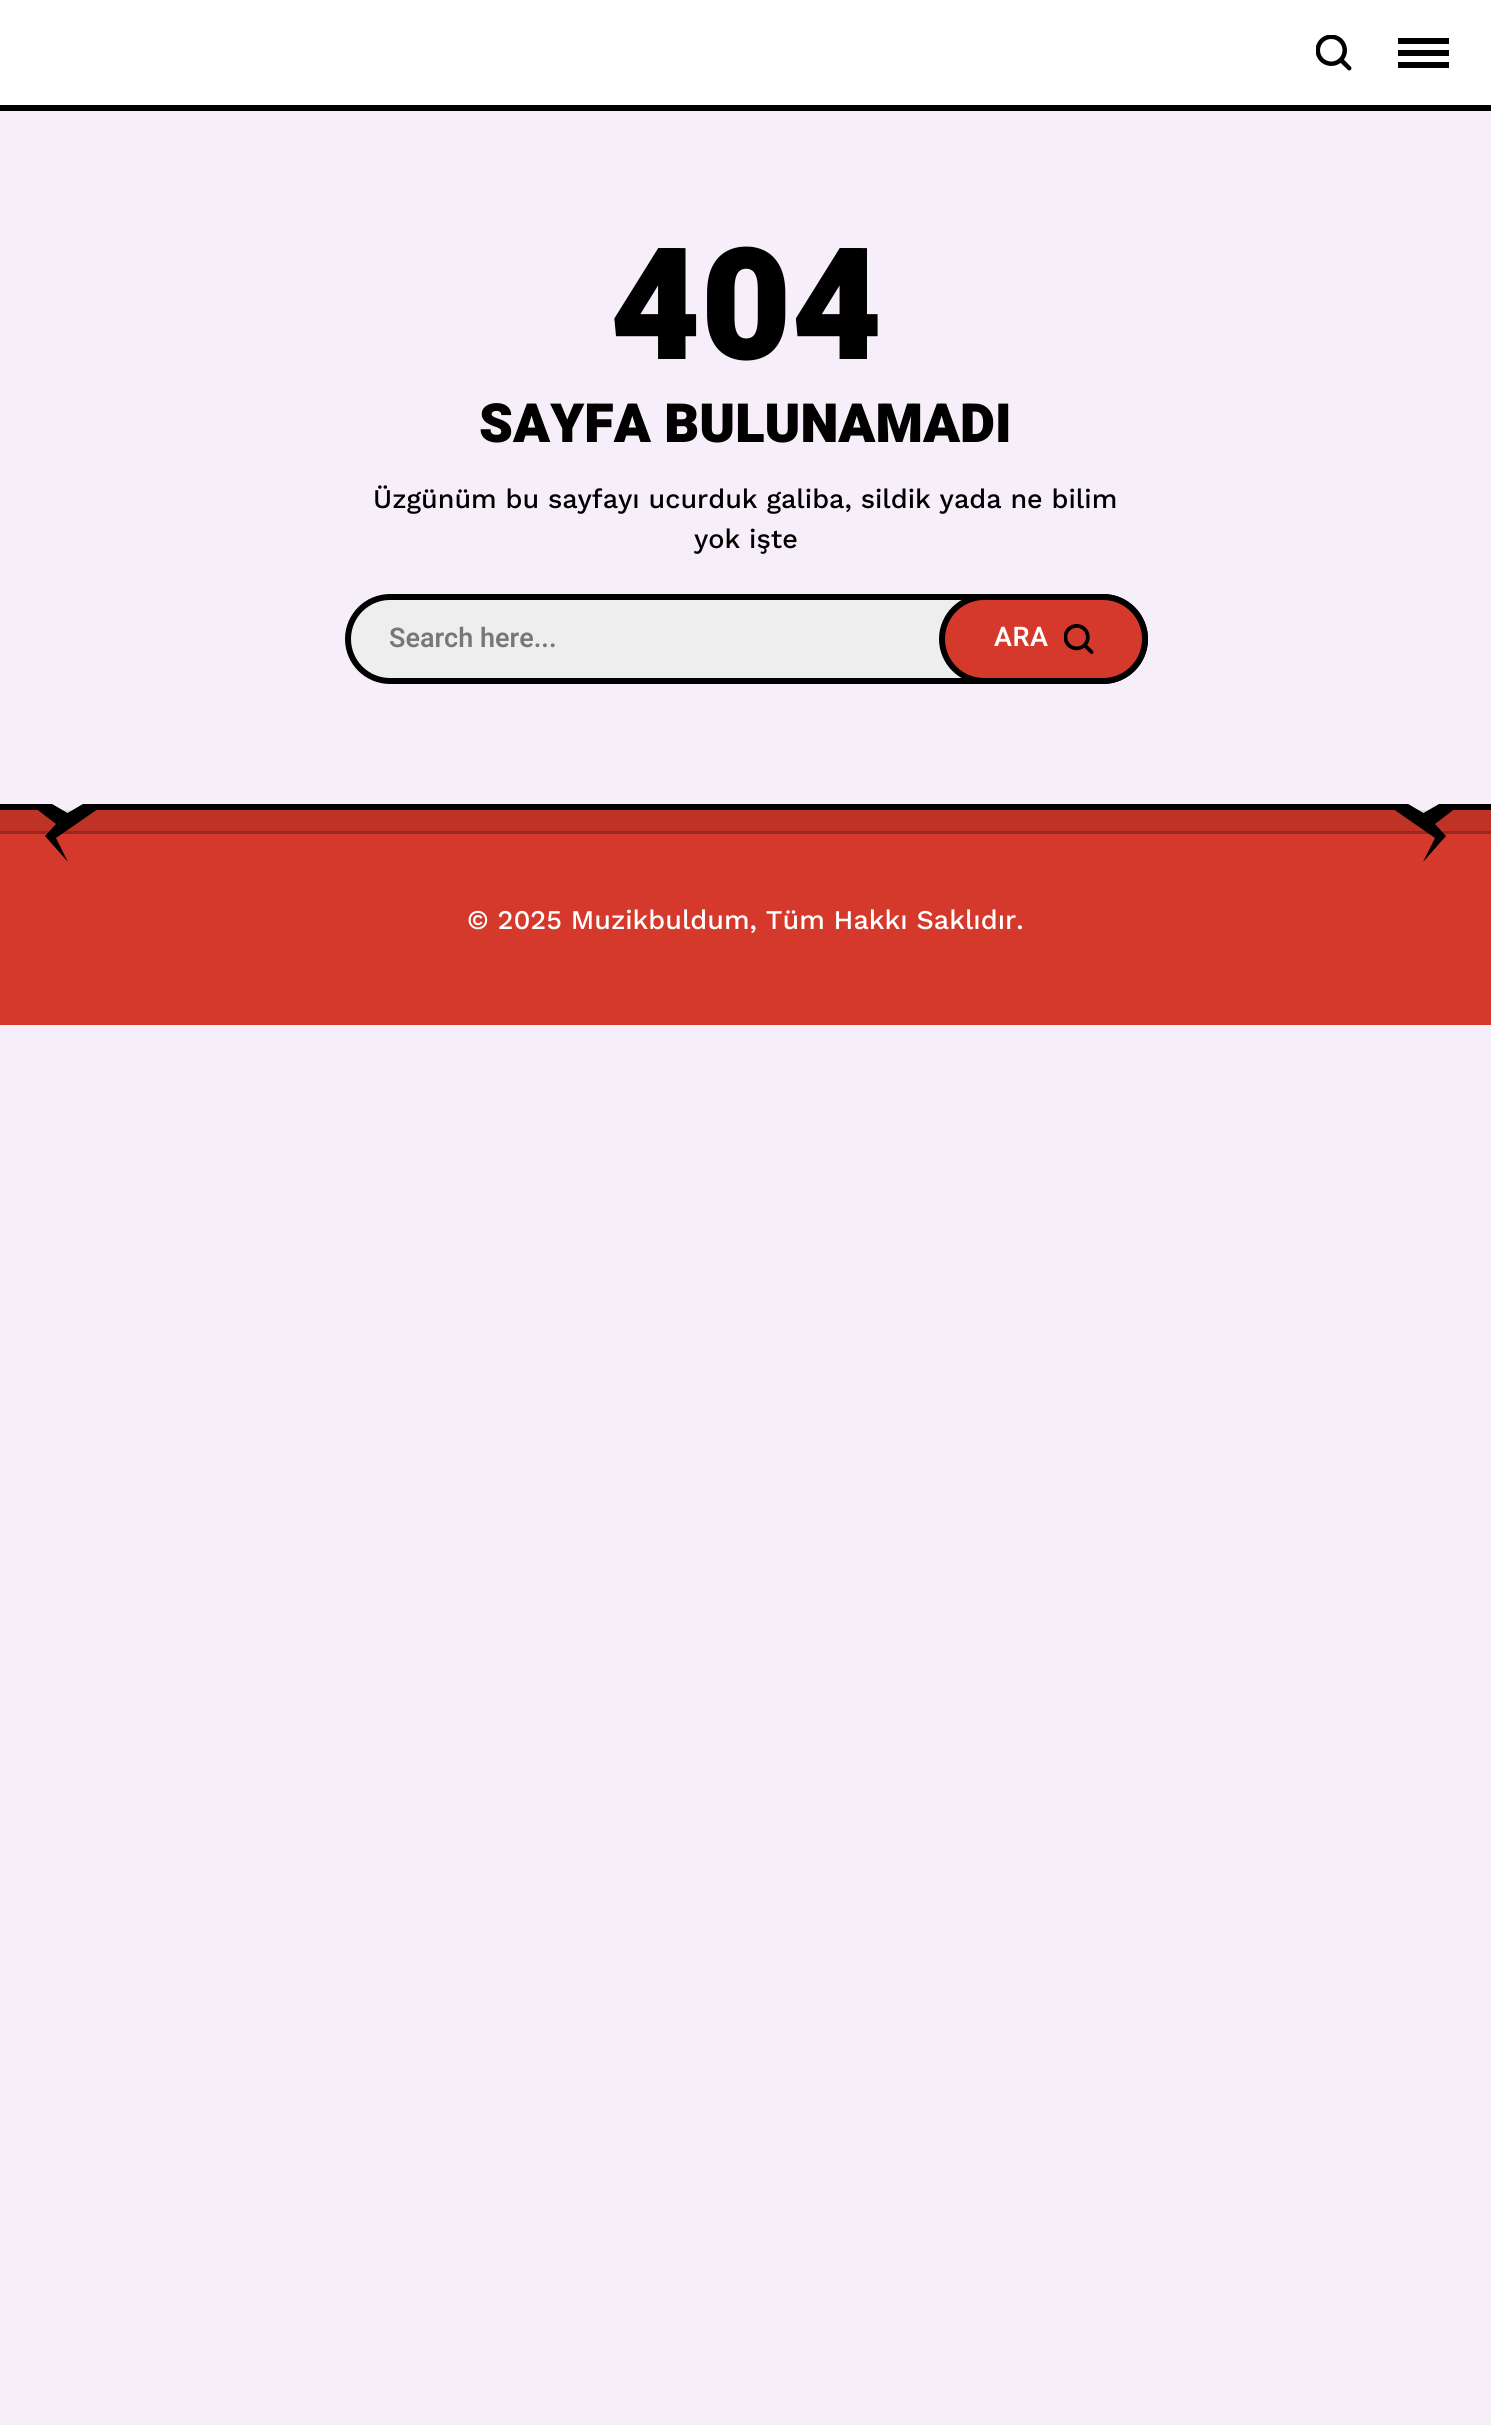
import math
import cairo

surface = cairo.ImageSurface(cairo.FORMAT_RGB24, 1491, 2425)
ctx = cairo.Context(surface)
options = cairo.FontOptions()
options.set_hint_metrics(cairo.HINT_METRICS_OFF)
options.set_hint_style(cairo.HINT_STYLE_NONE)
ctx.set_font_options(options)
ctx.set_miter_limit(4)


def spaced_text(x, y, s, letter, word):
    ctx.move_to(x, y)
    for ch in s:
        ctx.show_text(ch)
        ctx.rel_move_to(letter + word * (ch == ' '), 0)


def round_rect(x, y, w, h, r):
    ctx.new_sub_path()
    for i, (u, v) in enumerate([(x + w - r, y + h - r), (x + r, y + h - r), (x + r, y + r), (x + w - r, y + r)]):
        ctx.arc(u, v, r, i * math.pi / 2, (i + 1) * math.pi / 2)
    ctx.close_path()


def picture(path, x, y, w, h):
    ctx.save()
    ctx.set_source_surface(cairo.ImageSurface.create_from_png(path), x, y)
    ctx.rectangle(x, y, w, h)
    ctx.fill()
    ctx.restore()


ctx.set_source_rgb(0.961, 0.937, 0.976)
ctx.paint()
ctx.set_source_rgb(1, 1, 1)
ctx.rectangle(0, 0, 1491, 105)
ctx.fill()
ctx.set_source_rgb(0, 0, 0)
ctx.rectangle(0, 105, 1491, 6)
ctx.fill()
picture("img1.png", 1316, 35, 36, 36)
ctx.rectangle(1398, 50, 51, 6)
ctx.fill()
ctx.rectangle(1398, 38, 51, 6)
ctx.fill()
ctx.rectangle(1398, 62, 51, 6)
ctx.fill()
ctx.select_font_face("Heebo Black")
ctx.set_font_size(156)
ctx.move_to(610, 359)
ctx.show_text("404")
ctx.set_font_size(54)
ctx.move_to(479, 442)
ctx.show_text("SAYFA BULUNAMADI")
ctx.select_font_face("Work Sans Medium")
ctx.set_font_size(27)
ctx.move_to(373, 508)
ctx.show_text("Üzgünüm bu sayfayı ucurduk galiba, sildik yada ne bilim")
ctx.move_to(694, 548)
ctx.show_text("yok işte")
ctx.set_source_rgb(0.933, 0.933, 0.933)
round_rect(348, 597, 797, 84, 42)
ctx.fill_preserve()
ctx.set_source_rgb(0, 0, 0)
ctx.set_line_width(6)
ctx.stroke()
ctx.select_font_face("Heebo SemiBold")
ctx.set_source_rgb(0.467, 0.467, 0.467)
ctx.move_to(389, 647)
ctx.show_text("Search here...")
ctx.set_source_rgb(0.831, 0.224, 0.169)
round_rect(942, 597, 203, 84, 42)
ctx.fill_preserve()
ctx.set_source_rgb(0, 0, 0)
ctx.stroke()
ctx.set_source_rgb(1, 1, 1)
spaced_text(994, 646, "ARA", 0.5, 0)
picture("img2.png", 1064, 624, 30, 30)
ctx.set_source_rgb(0.831, 0.224, 0.169)
ctx.rectangle(0, 810, 1491, 215)
ctx.fill()
ctx.set_source_rgb(0, 0, 0)
ctx.rectangle(0, 804, 1491, 6)
ctx.fill()
ctx.set_source_rgb(0.667, 0.18, 0.133)
ctx.rectangle(0, 831, 1491, 3)
ctx.fill()
ctx.set_source_rgb(0, 0, 0)
ctx.new_path()
ctx.move_to(85, 804)
ctx.line_to(105, 804)
ctx.line_to(56, 838)
ctx.line_to(68, 862)
ctx.line_to(45, 836)
ctx.line_to(56, 824)
ctx.line_to(30, 804)
ctx.line_to(55, 804)
ctx.fill()
ctx.set_source_rgb(0.961, 0.937, 0.976)
ctx.new_path()
ctx.move_to(49.5, 802.5)
ctx.line_to(85.5, 802.5)
ctx.line_to(67.5, 813)
ctx.close_path()
ctx.fill()
ctx.set_source_rgb(0, 0, 0)
ctx.new_path()
ctx.move_to(1406, 804)
ctx.line_to(1386, 804)
ctx.line_to(1435, 838)
ctx.line_to(1423, 862)
ctx.line_to(1446, 836)
ctx.line_to(1435, 824)
ctx.line_to(1461, 804)
ctx.line_to(1436, 804)
ctx.fill()
ctx.set_source_rgb(0.961, 0.937, 0.976)
ctx.new_path()
ctx.move_to(1405.5, 802.5)
ctx.line_to(1441.5, 802.5)
ctx.line_to(1423.5, 813)
ctx.close_path()
ctx.fill()
ctx.set_source_rgba(0, 0, 0, 0.1)
ctx.rectangle(0, 810, 1491, 24)
ctx.fill()
ctx.select_font_face("Work Sans Medium")
ctx.set_source_rgb(1, 1, 1)
ctx.move_to(467, 929)
ctx.show_text("© 2025 Muzikbuldum, Tüm Hakkı Saklıdır.")
surface.write_to_png("page.png")
